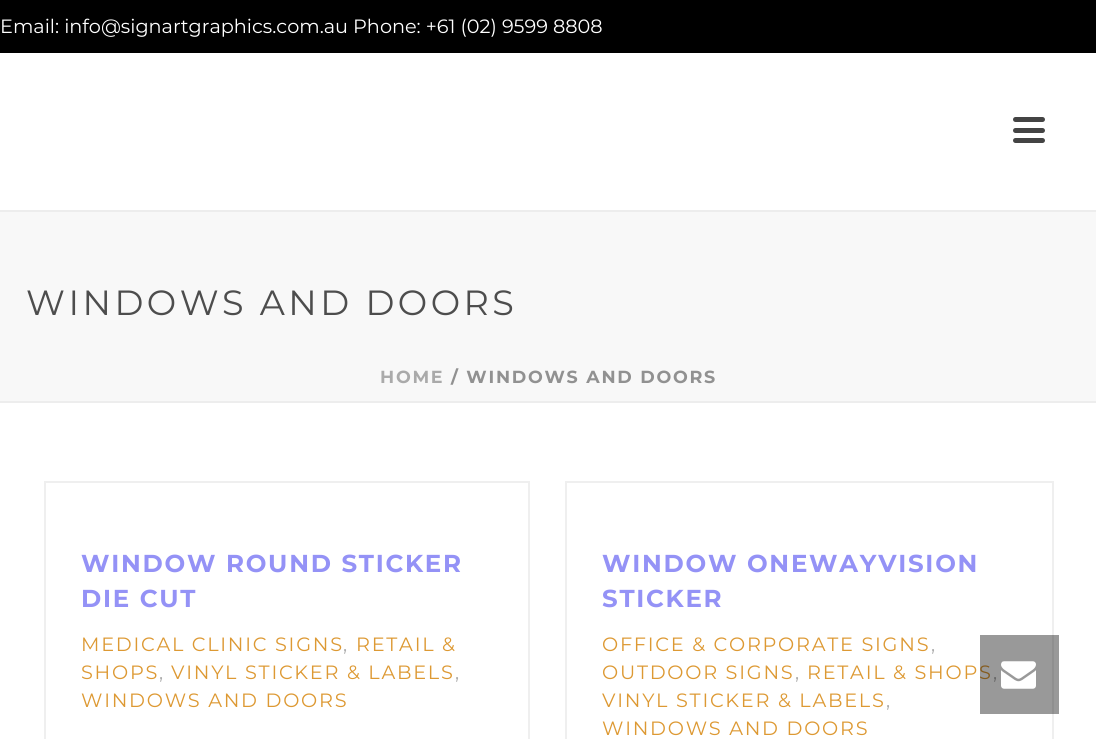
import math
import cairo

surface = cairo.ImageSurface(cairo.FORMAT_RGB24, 1096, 739)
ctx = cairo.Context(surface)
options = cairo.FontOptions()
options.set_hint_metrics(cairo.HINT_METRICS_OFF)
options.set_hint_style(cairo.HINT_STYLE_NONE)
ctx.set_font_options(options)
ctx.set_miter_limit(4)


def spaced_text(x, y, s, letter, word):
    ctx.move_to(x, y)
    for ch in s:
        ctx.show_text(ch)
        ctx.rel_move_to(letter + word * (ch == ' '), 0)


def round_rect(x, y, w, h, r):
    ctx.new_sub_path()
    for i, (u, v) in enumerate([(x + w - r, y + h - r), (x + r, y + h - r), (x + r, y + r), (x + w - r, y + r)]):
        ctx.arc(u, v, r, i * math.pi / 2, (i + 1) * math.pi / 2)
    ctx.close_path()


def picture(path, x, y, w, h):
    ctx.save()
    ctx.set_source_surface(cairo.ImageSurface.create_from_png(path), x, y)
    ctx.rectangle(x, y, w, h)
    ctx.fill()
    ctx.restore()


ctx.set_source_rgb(1, 1, 1)
ctx.paint()
ctx.set_source_rgb(0, 0, 0)
ctx.rectangle(0, 0, 1096, 53)
ctx.fill()
ctx.select_font_face("Montserrat")
ctx.set_font_size(19.25)
ctx.set_source_rgb(1, 1, 1)
ctx.move_to(0, 33)
ctx.show_text("Email: info@signartgraphics.com.au Phone: +61 (02) 9599 8808")
ctx.set_source_rgb(0.969, 0.969, 0.969)
ctx.rectangle(0, 212, 1096, 189)
ctx.fill()
ctx.set_source_rgb(0.929, 0.929, 0.929)
ctx.rectangle(0, 401, 1096, 2)
ctx.fill()
ctx.rectangle(0, 210, 1096, 2)
ctx.fill()
ctx.set_source_rgb(0.267, 0.267, 0.267)
round_rect(1013, 117, 32, 5, 2.5)
ctx.fill()
round_rect(1013, 128, 32, 5, 2.5)
ctx.fill()
round_rect(1013, 138, 32, 5, 2.5)
ctx.fill()
ctx.set_font_size(35)
ctx.set_source_rgb(0.302, 0.302, 0.302)
spaced_text(26, 315, "WINDOWS AND DOORS", 3.5, 0)
ctx.select_font_face("Montserrat", cairo.FONT_SLANT_NORMAL, cairo.FONT_WEIGHT_BOLD)
ctx.set_font_size(17.5)
ctx.set_source_rgb(0.667, 0.667, 0.667)
spaced_text(380, 383, "HOME", 1.75, 0)
ctx.set_source_rgb(0.569, 0.569, 0.569)
spaced_text(451, 383, "/ WINDOWS AND DOORS", 1.75, 0)
ctx.rectangle(45, 482, 484, 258)
ctx.set_source_rgb(0.937, 0.937, 0.937)
ctx.stroke()
ctx.set_font_size(24.5)
ctx.set_source_rgb(0.58, 0.573, 0.961)
spaced_text(81, 572, "WINDOW ROUND STICKER", 1.75, 0)
spaced_text(81, 607, "DIE CUT", 1.75, 0)
ctx.select_font_face("Montserrat")
ctx.set_font_size(19.25)
ctx.set_source_rgb(0.867, 0.6, 0.2)
spaced_text(81, 651, "MEDICAL CLINIC SIGNS", 1.75, 0)
ctx.set_source_rgb(0.667, 0.667, 0.667)
spaced_text(343, 651, ",", 1.75, 0)
ctx.set_source_rgb(0.867, 0.6, 0.2)
spaced_text(356, 651, "RETAIL &", 1.75, 0)
spaced_text(81, 679, "SHOPS", 1.75, 0)
ctx.set_source_rgb(0.667, 0.667, 0.667)
spaced_text(159, 679, ",", 1.75, 0)
ctx.set_source_rgb(0.867, 0.6, 0.2)
spaced_text(171, 679, "VINYL STICKER & LABELS", 1.75, 0)
ctx.set_source_rgb(0.667, 0.667, 0.667)
spaced_text(455, 679, ",", 1.75, 0)
ctx.set_source_rgb(0.867, 0.6, 0.2)
spaced_text(81, 707, "WINDOWS AND DOORS", 1.75, 0)
ctx.rectangle(566, 482, 487, 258)
ctx.set_source_rgb(0.937, 0.937, 0.937)
ctx.stroke()
ctx.select_font_face("Montserrat", cairo.FONT_SLANT_NORMAL, cairo.FONT_WEIGHT_BOLD)
ctx.set_font_size(24.5)
ctx.set_source_rgb(0.58, 0.573, 0.961)
spaced_text(602, 572, "WINDOW ONEWAYVISION", 1.75, 0)
spaced_text(602, 607, "STICKER", 1.75, 0)
ctx.select_font_face("Montserrat")
ctx.set_font_size(19.25)
ctx.set_source_rgb(0.867, 0.6, 0.2)
spaced_text(602, 651, "OFFICE & CORPORATE SIGNS", 1.75, 0)
ctx.set_source_rgb(0.667, 0.667, 0.667)
spaced_text(931, 651, ",", 1.75, 0)
ctx.set_source_rgb(0.867, 0.6, 0.2)
spaced_text(602, 679, "OUTDOOR SIGNS", 1.75, 0)
ctx.set_source_rgb(0.667, 0.667, 0.667)
spaced_text(795, 679, ",", 1.75, 0)
ctx.set_source_rgb(0.867, 0.6, 0.2)
spaced_text(807, 679, "RETAIL & SHOPS", 1.75, 0)
ctx.set_source_rgb(0.667, 0.667, 0.667)
spaced_text(993, 679, ",", 1.75, 0)
ctx.set_source_rgb(0.867, 0.6, 0.2)
spaced_text(602, 707, "VINYL STICKER & LABELS", 1.75, 0)
ctx.set_source_rgb(0.667, 0.667, 0.667)
spaced_text(886, 707, ",", 1.75, 0)
ctx.set_source_rgb(0.867, 0.6, 0.2)
spaced_text(602, 735, "WINDOWS AND DOORS", 1.75, 0)
ctx.set_source_rgba(0, 0, 0, 0.4)
ctx.rectangle(980, 635, 79, 79)
ctx.fill()
picture("img1.png", 1001, 661, 35, 28)
surface.write_to_png("page.png")
